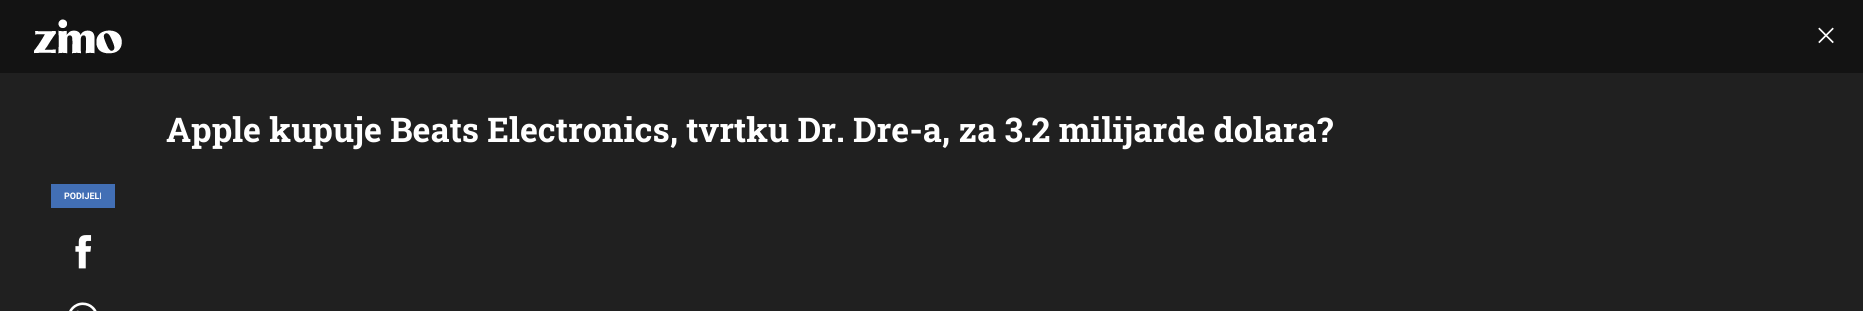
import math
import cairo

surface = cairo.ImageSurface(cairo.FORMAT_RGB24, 1863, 311)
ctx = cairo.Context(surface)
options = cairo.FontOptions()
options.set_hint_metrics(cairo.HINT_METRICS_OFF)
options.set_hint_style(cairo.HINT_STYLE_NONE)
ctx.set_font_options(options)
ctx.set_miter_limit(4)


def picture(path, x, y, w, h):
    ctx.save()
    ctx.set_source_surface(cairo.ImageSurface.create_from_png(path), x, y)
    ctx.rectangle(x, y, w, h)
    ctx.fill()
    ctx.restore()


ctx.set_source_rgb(0.125, 0.125, 0.125)
ctx.paint()
ctx.set_source_rgb(0.078, 0.078, 0.078)
ctx.rectangle(0, 0, 1863, 73)
ctx.fill()
picture("img1.png", 34, 19, 88, 35)
picture("img2.png", 1818, 27, 16, 17)
ctx.select_font_face("Roboto Slab", cairo.FONT_SLANT_NORMAL, cairo.FONT_WEIGHT_BOLD)
ctx.set_font_size(34)
ctx.set_source_rgb(1, 1, 1)
ctx.move_to(166, 142)
ctx.show_text("Apple kupuje Beats Electronics, tvrtku Dr. Dre-a, za 3.2 milijarde dolara?")
ctx.set_source_rgb(0.259, 0.435, 0.71)
ctx.rectangle(51, 184, 64, 24)
ctx.fill()
ctx.select_font_face("Roboto", cairo.FONT_SLANT_NORMAL, cairo.FONT_WEIGHT_BOLD)
ctx.set_font_size(9)
ctx.set_source_rgb(1, 1, 1)
ctx.move_to(64, 199)
ctx.show_text("PODIJELI")
picture("img3.png", 75, 235, 17, 34)
picture("img4.png", 69, 302, 28, 9)
surface.write_to_png("page.png")
